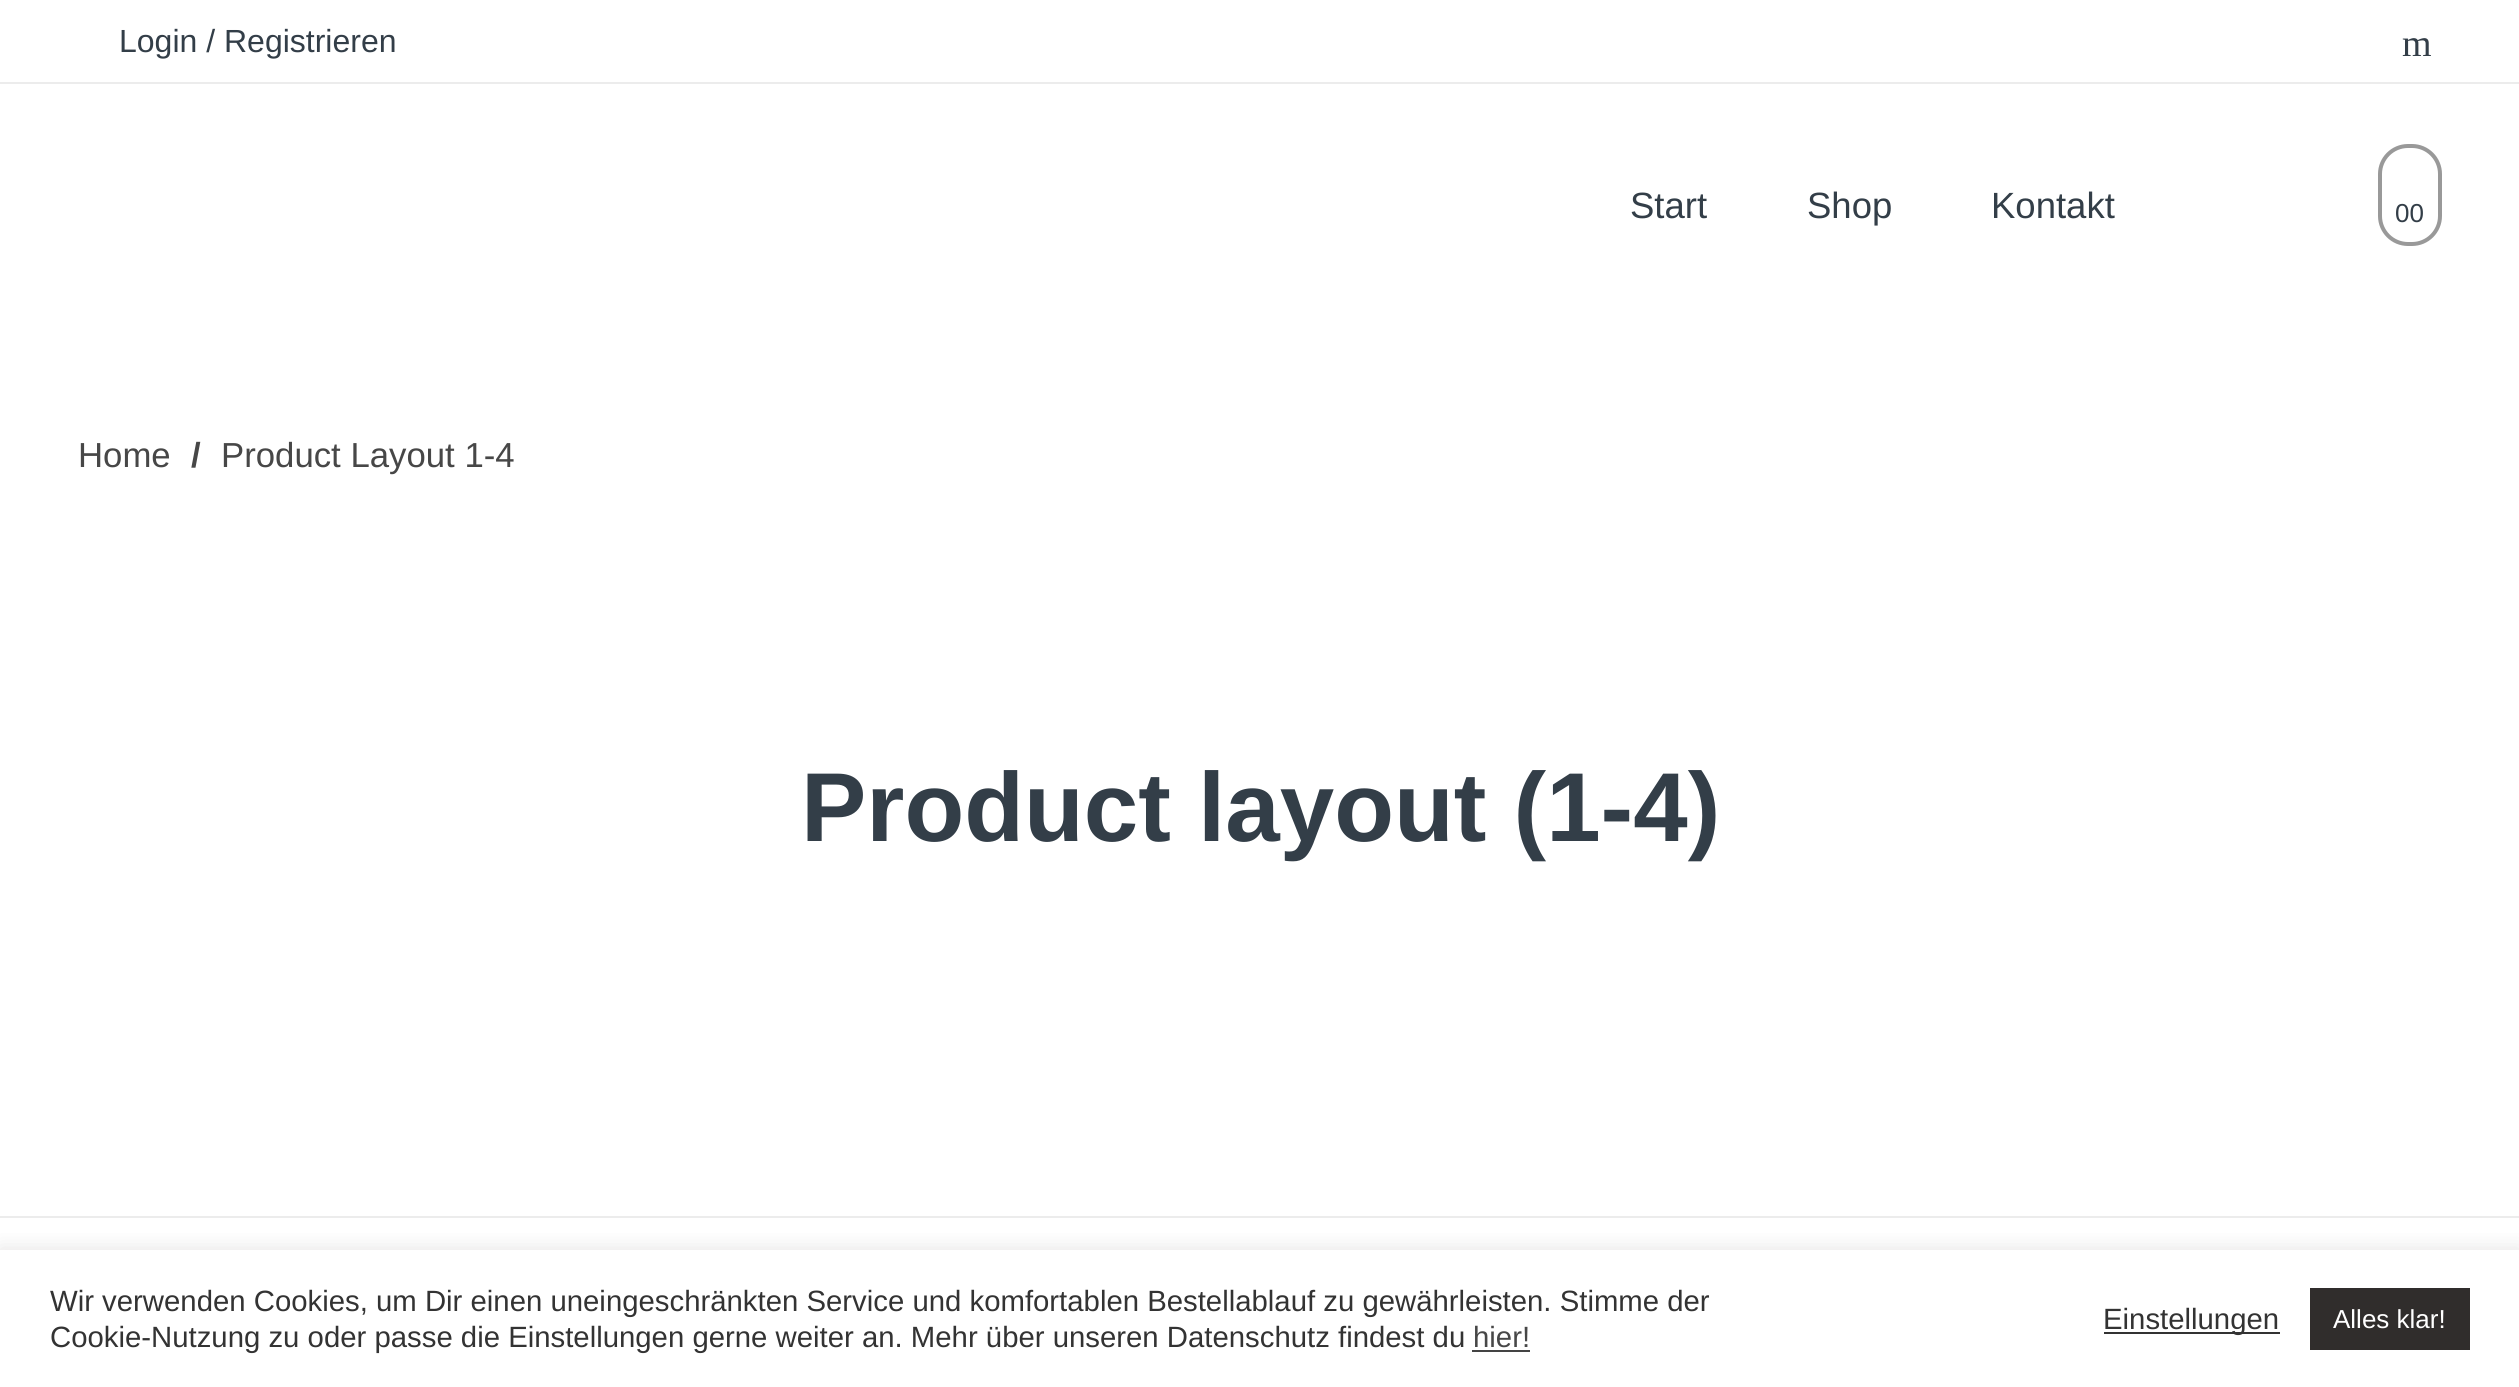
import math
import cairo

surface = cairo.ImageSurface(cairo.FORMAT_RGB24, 2519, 1387)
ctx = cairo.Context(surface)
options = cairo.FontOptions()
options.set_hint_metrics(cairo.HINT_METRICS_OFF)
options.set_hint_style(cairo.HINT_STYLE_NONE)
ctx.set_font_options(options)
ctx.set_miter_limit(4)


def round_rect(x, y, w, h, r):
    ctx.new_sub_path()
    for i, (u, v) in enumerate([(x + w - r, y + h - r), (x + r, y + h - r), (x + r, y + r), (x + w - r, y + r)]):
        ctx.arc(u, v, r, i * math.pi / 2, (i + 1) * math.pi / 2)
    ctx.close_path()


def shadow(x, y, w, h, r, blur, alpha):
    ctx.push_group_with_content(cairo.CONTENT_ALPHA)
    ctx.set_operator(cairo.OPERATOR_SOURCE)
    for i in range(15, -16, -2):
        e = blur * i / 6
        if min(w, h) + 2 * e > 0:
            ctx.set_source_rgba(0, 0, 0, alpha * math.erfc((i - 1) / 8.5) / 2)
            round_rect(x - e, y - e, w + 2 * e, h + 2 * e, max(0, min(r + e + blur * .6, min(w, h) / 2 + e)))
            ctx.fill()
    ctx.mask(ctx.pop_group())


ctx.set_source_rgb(1, 1, 1)
ctx.paint()
ctx.set_source_rgb(0.925, 0.925, 0.925)
ctx.rectangle(0, 82, 2519, 2)
ctx.fill()
ctx.select_font_face("Liberation Sans")
ctx.set_font_size(32)
ctx.set_source_rgb(0.2, 0.243, 0.282)
ctx.move_to(119, 52)
ctx.show_text("Login / Registrieren")
ctx.select_font_face("Liberation Serif")
ctx.set_font_size(38)
ctx.move_to(2402, 56)
ctx.show_text("m")
ctx.select_font_face("Liberation Sans")
ctx.set_font_size(36.5)
ctx.move_to(1630, 218)
ctx.show_text("Start")
ctx.move_to(1807, 218)
ctx.show_text("Shop")
ctx.move_to(1991, 218)
ctx.show_text("Kontakt")
round_rect(2380, 146, 60, 98, 28)
ctx.set_source_rgb(0.6, 0.6, 0.6)
ctx.set_line_width(4)
ctx.stroke()
ctx.set_font_size(26)
ctx.set_source_rgb(0.2, 0.243, 0.282)
ctx.move_to(2395, 222)
ctx.show_text("00")
ctx.set_font_size(34.75)
ctx.set_source_rgb(0.278, 0.278, 0.278)
ctx.move_to(78, 467)
ctx.show_text("Home")
ctx.select_font_face("Liberation Sans", cairo.FONT_SLANT_NORMAL, cairo.FONT_WEIGHT_BOLD)
ctx.move_to(191, 467)
ctx.show_text("/")
ctx.select_font_face("Liberation Sans")
ctx.move_to(221, 467)
ctx.show_text("Product Layout 1-4")
ctx.select_font_face("Liberation Sans", cairo.FONT_SLANT_NORMAL, cairo.FONT_WEIGHT_BOLD)
ctx.set_font_size(97.9)
ctx.set_source_rgb(0.2, 0.243, 0.282)
ctx.move_to(801, 841)
ctx.show_text("Product layout (1-4)")
ctx.set_source_rgb(0.925, 0.925, 0.925)
ctx.rectangle(0, 1216, 2519, 2)
ctx.fill()
ctx.save()
ctx.rectangle(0, 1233, 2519, 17)
ctx.clip()
ctx.set_source_rgb(0.675, 0.671, 0.671)
shadow(0, 1248, 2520, 138, 0, 10, 0.3)
ctx.restore()
ctx.select_font_face("Liberation Sans")
ctx.set_font_size(29.33)
ctx.set_source_rgb(0.2, 0.2, 0.2)
ctx.move_to(50, 1311)
ctx.show_text("Wir verwenden Cookies, um Dir einen uneingeschränkten Service und komfortablen Bestellablauf zu gewährleisten. Stimme der")
ctx.move_to(50, 1347)
ctx.show_text("Cookie-Nutzung zu oder passe die Einstellungen gerne weiter an. Mehr über unseren Datenschutz findest du")
ctx.set_source_rgb(0.278, 0.278, 0.278)
ctx.move_to(1473, 1347)
ctx.show_text("hier!")
ctx.set_source_rgb(0.267, 0.267, 0.267)
ctx.rectangle(1472, 1350, 58, 2)
ctx.fill()
ctx.set_source_rgb(0.2, 0.2, 0.2)
ctx.rectangle(2104, 1332, 176, 2)
ctx.fill()
ctx.move_to(2103, 1329)
ctx.show_text("Einstellungen")
ctx.set_source_rgb(0.188, 0.176, 0.173)
ctx.rectangle(2310, 1288, 160, 62)
ctx.fill()
ctx.set_font_size(26)
ctx.set_source_rgb(1, 1, 1)
ctx.move_to(2333, 1328)
ctx.show_text("Alles klar!")
surface.write_to_png("page.png")
